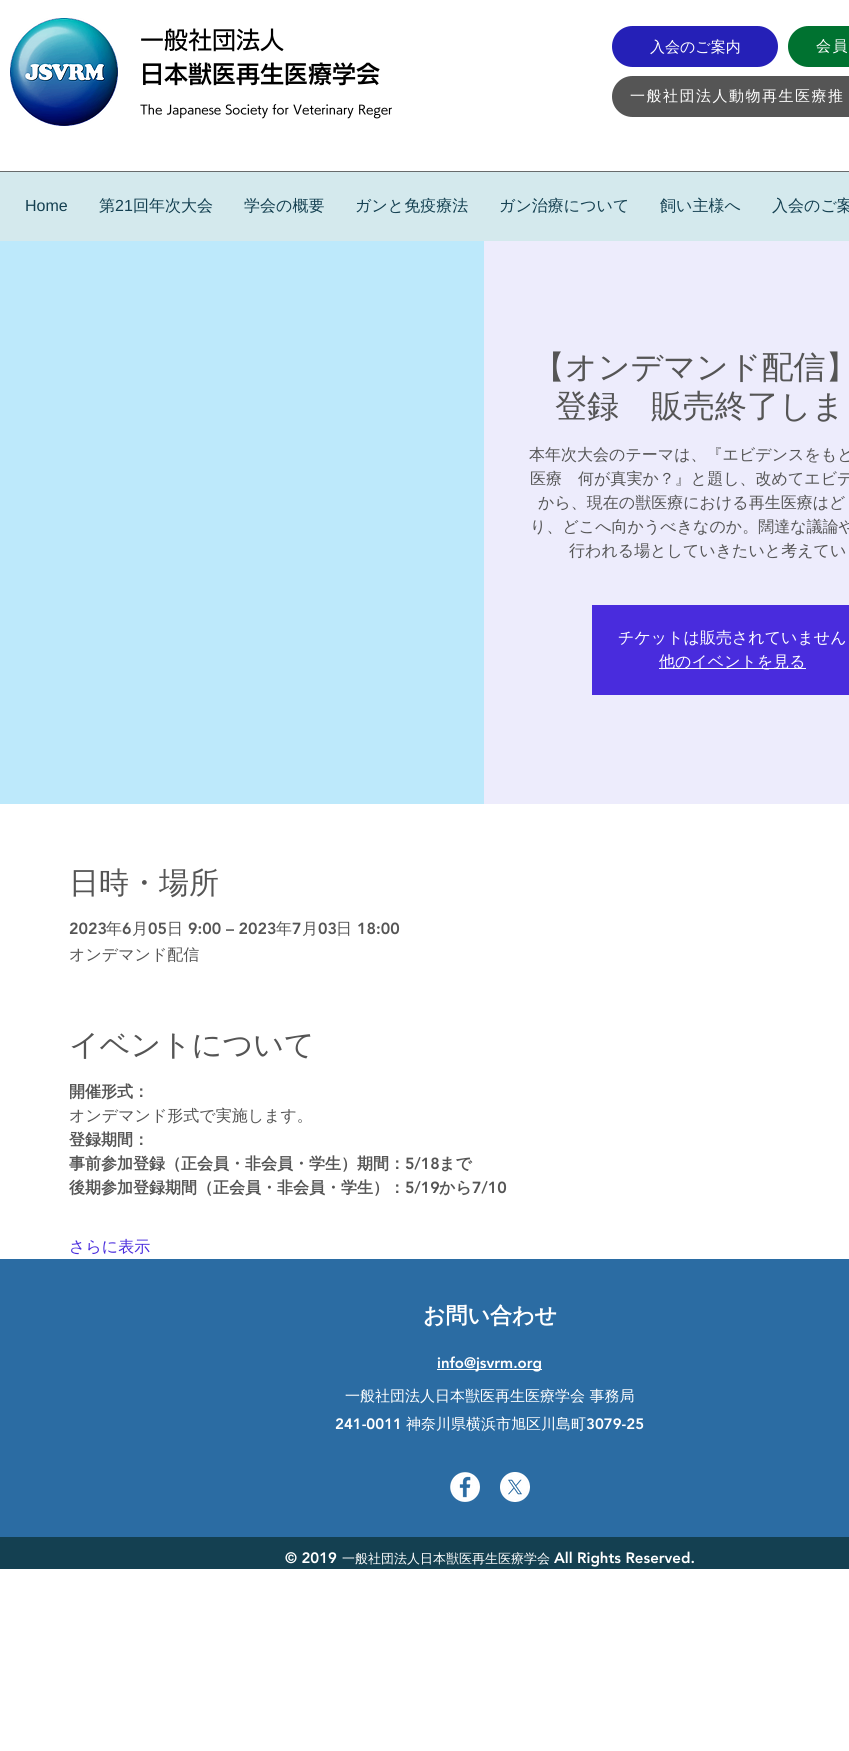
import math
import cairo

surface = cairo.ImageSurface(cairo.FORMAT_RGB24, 849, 1751)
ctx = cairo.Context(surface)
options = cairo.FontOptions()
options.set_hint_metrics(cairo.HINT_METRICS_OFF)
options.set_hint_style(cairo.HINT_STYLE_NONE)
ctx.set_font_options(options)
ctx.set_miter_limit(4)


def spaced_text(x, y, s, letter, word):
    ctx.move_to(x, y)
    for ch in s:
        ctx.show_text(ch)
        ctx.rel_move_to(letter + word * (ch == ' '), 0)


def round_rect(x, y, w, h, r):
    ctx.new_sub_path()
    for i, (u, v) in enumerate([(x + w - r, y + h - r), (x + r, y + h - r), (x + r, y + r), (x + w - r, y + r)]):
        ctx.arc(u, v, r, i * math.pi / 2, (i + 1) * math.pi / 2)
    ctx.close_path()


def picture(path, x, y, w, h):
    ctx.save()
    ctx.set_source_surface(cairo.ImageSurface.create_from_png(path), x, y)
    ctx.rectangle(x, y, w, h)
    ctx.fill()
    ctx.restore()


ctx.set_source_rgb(1, 1, 1)
ctx.paint()
picture("img1.png", 10, 18, 108, 108)
ctx.select_font_face("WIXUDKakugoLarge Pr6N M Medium")
ctx.set_font_size(24)
ctx.set_source_rgb(0, 0, 0)
ctx.move_to(140, 49)
ctx.show_text("一般社団法人")
ctx.select_font_face("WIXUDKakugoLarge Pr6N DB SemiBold")
ctx.move_to(140, 83)
ctx.show_text("日本獣医再生医療学会")
ctx.select_font_face("WIXUDKakugoLarge Pr6N M Medium")
ctx.set_font_size(12)
ctx.move_to(140, 114)
ctx.show_text("The Japanese Society for Veterinary Regen")
ctx.set_source_rgb(0.145, 0.125, 0.718)
round_rect(612, 26, 166, 41, 20.5)
ctx.fill()
ctx.select_font_face("WenQuanYi Zen Hei Medium")
ctx.set_font_size(15)
ctx.set_source_rgb(1, 1, 1)
ctx.move_to(650, 52)
ctx.show_text("入会のご案内")
ctx.set_source_rgb(0, 0.447, 0.188)
round_rect(788, 26, 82, 41, 20.5)
ctx.fill()
ctx.set_source_rgb(1, 1, 1)
spaced_text(816, 51, "会員", 1.5, 0)
ctx.set_source_rgb(0.333, 0.333, 0.333)
round_rect(612, 76, 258, 41, 20.5)
ctx.fill()
ctx.set_source_rgb(1, 1, 1)
spaced_text(630, 101, "一般社団法人動物再生医療推", 1.5, 0)
ctx.rectangle(392, 107, 3, 8)
ctx.fill()
ctx.set_source_rgb(0.408, 0.42, 0.424)
ctx.rectangle(0, 171, 849, 1)
ctx.fill()
ctx.set_source_rgb(0.831, 0.914, 0.929)
ctx.rectangle(0, 172, 849, 69)
ctx.fill()
ctx.select_font_face("Liberation Sans")
ctx.set_font_size(16)
ctx.set_source_rgb(0.082, 0.251, 0.318)
ctx.move_to(25, 211)
ctx.show_text("Home")
ctx.select_font_face("WenQuanYi Zen Hei Medium")
ctx.move_to(99, 211)
ctx.show_text("第")
ctx.select_font_face("Liberation Sans")
ctx.move_to(115, 211)
ctx.show_text("21")
ctx.select_font_face("WenQuanYi Zen Hei Medium")
ctx.move_to(133, 211)
ctx.show_text("回年次大会")
ctx.move_to(244, 211)
ctx.show_text("学会の概要")
ctx.move_to(355, 211)
ctx.show_text("ガンと免疫療法")
ctx.move_to(499, 211)
ctx.show_text("ガン治療について")
ctx.move_to(660, 211)
ctx.show_text("飼い主様へ")
ctx.move_to(772, 211)
ctx.show_text("入会のご案")
ctx.set_source_rgb(0.741, 0.914, 0.984)
ctx.rectangle(0, 241, 484, 563)
ctx.fill()
ctx.set_source_rgb(0.929, 0.922, 0.988)
ctx.rectangle(484, 241, 365, 563)
ctx.fill()
ctx.set_font_size(32)
ctx.set_source_rgb(0.333, 0.333, 0.333)
ctx.move_to(533, 378)
ctx.show_text("【オンデマンド配信】")
ctx.move_to(555, 417)
ctx.show_text("登録　販売終了しま")
ctx.set_font_size(16)
ctx.move_to(529, 460)
ctx.show_text("本年次大会のテーマは、『エビデンスをもと")
ctx.move_to(530, 484)
ctx.show_text("医療　何が真実か？』と題し、改めてエビデ")
ctx.move_to(538, 508)
ctx.show_text("から、現在の獣医療における再生医療はど")
ctx.move_to(530, 532)
ctx.show_text("り、どこへ向かうべきなのか。闊達な議論や")
ctx.move_to(569, 556)
ctx.show_text("行われる場としていきたいと考えてい")
ctx.set_source_rgb(0.286, 0.173, 0.867)
ctx.rectangle(592, 605, 257, 90)
ctx.fill()
ctx.set_source_rgb(1, 1, 1)
ctx.move_to(618, 643)
ctx.show_text("チケットは販売されていません")
ctx.rectangle(659, 668, 147, 1)
ctx.fill()
ctx.move_to(659, 667)
ctx.show_text("他のイベントを見る")
ctx.set_font_size(30)
ctx.set_source_rgb(0.333, 0.333, 0.333)
ctx.move_to(69, 893)
ctx.show_text("日時・場所")
ctx.select_font_face("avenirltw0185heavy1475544 Black")
ctx.set_font_size(16)
ctx.move_to(69, 934)
ctx.show_text("2023")
ctx.select_font_face("WenQuanYi Zen Hei Medium")
ctx.move_to(106, 934)
ctx.show_text("年")
ctx.select_font_face("avenirltw0185heavy1475544 Black")
ctx.move_to(122, 934)
ctx.show_text("6")
ctx.select_font_face("WenQuanYi Zen Hei Medium")
ctx.move_to(132, 934)
ctx.show_text("月")
ctx.select_font_face("avenirltw0185heavy1475544 Black")
ctx.move_to(148, 934)
ctx.show_text("05")
ctx.select_font_face("WenQuanYi Zen Hei Medium")
ctx.move_to(167, 934)
ctx.show_text("日")
ctx.select_font_face("avenirltw0185heavy1475544 Black")
ctx.move_to(188, 934)
ctx.show_text("9:00 – 2023")
ctx.select_font_face("WenQuanYi Zen Hei Medium")
ctx.move_to(276, 934)
ctx.show_text("年")
ctx.select_font_face("avenirltw0185heavy1475544 Black")
ctx.move_to(292, 934)
ctx.show_text("7")
ctx.select_font_face("WenQuanYi Zen Hei Medium")
ctx.move_to(302, 934)
ctx.show_text("月")
ctx.select_font_face("avenirltw0185heavy1475544 Black")
ctx.move_to(318, 934)
ctx.show_text("03")
ctx.select_font_face("WenQuanYi Zen Hei Medium")
ctx.move_to(336, 934)
ctx.show_text("日")
ctx.select_font_face("avenirltw0185heavy1475544 Black")
ctx.move_to(357, 934)
ctx.show_text("18:00")
ctx.select_font_face("WenQuanYi Zen Hei Medium")
ctx.move_to(69, 960)
ctx.show_text("オンデマンド配信")
ctx.set_font_size(30)
ctx.move_to(69, 1055)
ctx.show_text("イベントについて")
ctx.select_font_face("WenQuanYi Zen Hei", cairo.FONT_SLANT_NORMAL, cairo.FONT_WEIGHT_BOLD)
ctx.set_font_size(16)
ctx.move_to(69, 1097)
ctx.show_text("開催形式：")
ctx.select_font_face("WenQuanYi Zen Hei Medium")
ctx.move_to(69, 1121)
ctx.show_text("オンデマンド形式で実施します。")
ctx.select_font_face("WenQuanYi Zen Hei", cairo.FONT_SLANT_NORMAL, cairo.FONT_WEIGHT_BOLD)
ctx.move_to(69, 1145)
ctx.show_text("登録期間：")
ctx.move_to(69, 1169)
ctx.show_text("事前参加登録（正会員・非会員・学生）期間：")
ctx.select_font_face("avenirltw0185heavy1475544 Black")
ctx.move_to(405, 1169)
ctx.show_text("5/18")
ctx.select_font_face("WenQuanYi Zen Hei", cairo.FONT_SLANT_NORMAL, cairo.FONT_WEIGHT_BOLD)
ctx.move_to(439, 1169)
ctx.show_text("まで")
ctx.move_to(69, 1193)
ctx.show_text("後期参加登録期間（正会員・非会員・学生）：")
ctx.select_font_face("avenirltw0185heavy1475544 Black")
ctx.move_to(405, 1193)
ctx.show_text("5/19")
ctx.select_font_face("WenQuanYi Zen Hei", cairo.FONT_SLANT_NORMAL, cairo.FONT_WEIGHT_BOLD)
ctx.move_to(439, 1193)
ctx.show_text("から")
ctx.select_font_face("avenirltw0185heavy1475544 Black")
ctx.move_to(472, 1193)
ctx.show_text("7/10")
ctx.select_font_face("WenQuanYi Zen Hei Medium")
ctx.set_source_rgb(0.286, 0.173, 0.867)
ctx.move_to(69, 1252)
ctx.show_text("さらに表示")
ctx.set_source_rgb(0.169, 0.424, 0.639)
ctx.rectangle(0, 1259, 849, 278)
ctx.fill()
ctx.select_font_face("WenQuanYi Zen Hei", cairo.FONT_SLANT_NORMAL, cairo.FONT_WEIGHT_BOLD)
ctx.set_font_size(22)
ctx.set_source_rgb(1, 1, 1)
ctx.move_to(423, 1323)
ctx.show_text("お問い合わせ")
ctx.rectangle(437, 1369, 105, 1)
ctx.fill()
ctx.select_font_face("avenirltw0185heavy1475544 Black")
ctx.set_font_size(15)
ctx.move_to(437, 1368)
ctx.show_text("info@jsvrm.org")
ctx.select_font_face("WenQuanYi Zen Hei Medium")
ctx.move_to(345, 1401)
ctx.show_text("一般社団法人日本獣医再生医療学会 事務局")
ctx.select_font_face("avenirltw0185heavy1475544 Black")
ctx.move_to(335, 1429)
ctx.show_text("241-0011")
ctx.select_font_face("WenQuanYi Zen Hei Medium")
ctx.move_to(406, 1429)
ctx.show_text("神奈川県横浜市旭区川島町")
ctx.select_font_face("avenirltw0185heavy1475544 Black")
ctx.move_to(586, 1429)
ctx.show_text("3079-25")
picture("img2.png", 450, 1472, 30, 30)
picture("img3.png", 500, 1472, 30, 30)
ctx.set_source_rgb(0.082, 0.251, 0.318)
ctx.rectangle(0, 1537, 849, 32)
ctx.fill()
ctx.set_source_rgb(1, 1, 1)
ctx.move_to(285, 1563)
ctx.show_text("© 2019")
ctx.select_font_face("WenQuanYi Zen Hei Medium")
ctx.set_font_size(13)
ctx.move_to(342, 1563)
ctx.show_text("一般社団法人日本獣医再生医療学会")
ctx.select_font_face("avenirltw0185heavy1475544 Black")
ctx.set_font_size(15)
ctx.move_to(554, 1563)
ctx.show_text("All Rights Reserved.")
surface.write_to_png("page.png")
